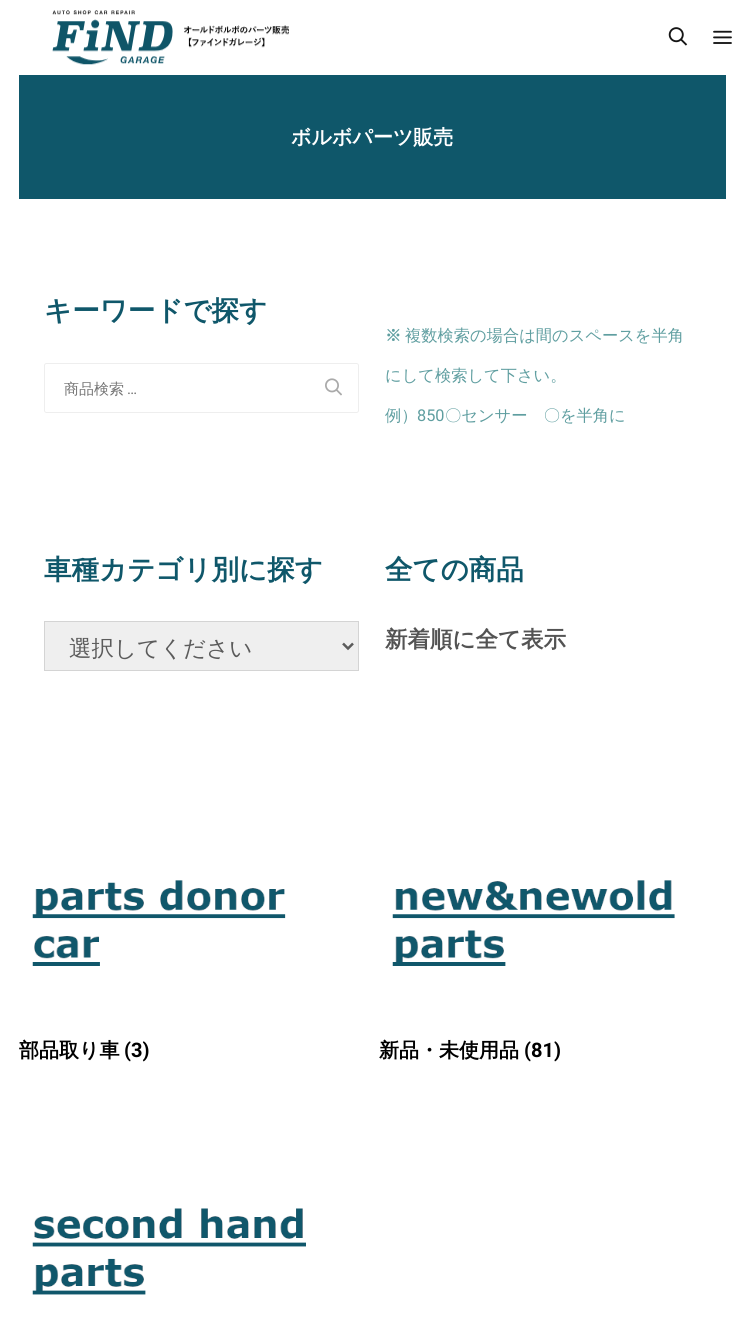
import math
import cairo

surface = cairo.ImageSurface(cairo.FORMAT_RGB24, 744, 1331)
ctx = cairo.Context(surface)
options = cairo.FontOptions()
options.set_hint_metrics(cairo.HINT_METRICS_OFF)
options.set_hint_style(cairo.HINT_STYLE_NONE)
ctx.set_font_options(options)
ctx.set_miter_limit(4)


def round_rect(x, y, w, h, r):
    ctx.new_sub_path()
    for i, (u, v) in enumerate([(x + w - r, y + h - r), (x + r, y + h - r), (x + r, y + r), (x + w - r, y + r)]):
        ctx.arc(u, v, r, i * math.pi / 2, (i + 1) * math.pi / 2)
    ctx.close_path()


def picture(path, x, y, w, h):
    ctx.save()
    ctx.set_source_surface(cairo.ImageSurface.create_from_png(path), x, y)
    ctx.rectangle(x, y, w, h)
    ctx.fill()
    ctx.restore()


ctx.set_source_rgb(1, 1, 1)
ctx.paint()
picture("img1.png", 52, 10, 237, 55)
picture("img2.png", 668, 27, 20, 19)
picture("img3.png", 713, 30, 19, 14)
ctx.set_source_rgb(0.059, 0.341, 0.416)
ctx.rectangle(19, 75, 707, 124)
ctx.fill()
ctx.select_font_face("WenQuanYi Zen Hei", cairo.FONT_SLANT_NORMAL, cairo.FONT_WEIGHT_BOLD)
ctx.set_font_size(20)
ctx.set_source_rgb(1, 1, 1)
ctx.move_to(291, 144)
ctx.show_text("ボルボパーツ販売")
ctx.set_font_size(27.5)
ctx.set_source_rgb(0.059, 0.341, 0.416)
ctx.move_to(44, 320)
ctx.show_text("キーワードで探す")
round_rect(44.5, 363.5, 314, 49, 2)
ctx.set_source_rgb(0.933, 0.933, 0.933)
ctx.set_line_width(1)
ctx.stroke()
ctx.select_font_face("WenQuanYi Zen Hei Medium")
ctx.set_font_size(15)
ctx.set_source_rgb(0.459, 0.459, 0.459)
ctx.move_to(64, 394)
ctx.show_text("商品検索")
ctx.select_font_face("Roboto")
ctx.move_to(127, 394)
ctx.show_text("…")
picture("img4.png", 325, 378, 17, 18)
ctx.select_font_face("WenQuanYi Zen Hei", cairo.FONT_SLANT_NORMAL, cairo.FONT_WEIGHT_BOLD)
ctx.set_font_size(16.25)
ctx.set_source_rgb(0.373, 0.62, 0.627)
ctx.move_to(385, 341)
ctx.show_text("※")
ctx.select_font_face("WenQuanYi Zen Hei Medium")
ctx.move_to(405, 341)
ctx.show_text("複数検索の場合は間のスペースを半角")
ctx.move_to(385, 381)
ctx.show_text("にして検索して下さい。")
ctx.move_to(385, 421)
ctx.show_text("例）")
ctx.select_font_face("Roboto")
ctx.move_to(417, 421)
ctx.show_text("850")
ctx.select_font_face("WenQuanYi Zen Hei Medium")
ctx.move_to(445, 421)
ctx.show_text("〇センサー　〇を半角に")
ctx.select_font_face("WenQuanYi Zen Hei", cairo.FONT_SLANT_NORMAL, cairo.FONT_WEIGHT_BOLD)
ctx.set_font_size(27.5)
ctx.set_source_rgb(0.059, 0.341, 0.416)
ctx.move_to(44, 579)
ctx.show_text("車種カテゴリ別に探す")
ctx.set_source_rgb(0.937, 0.937, 0.937)
ctx.rectangle(44.5, 621.5, 314, 49)
ctx.fill_preserve()
ctx.set_source_rgb(0.831, 0.831, 0.831)
ctx.stroke()
ctx.new_path()
ctx.move_to(343, 643.5)
ctx.line_to(348, 648.5)
ctx.line_to(353, 643.5)
ctx.set_source_rgb(0.357, 0.357, 0.357)
ctx.set_line_width(2.5)
ctx.stroke()
ctx.select_font_face("WenQuanYi Zen Hei Medium")
ctx.set_font_size(22.5)
ctx.move_to(69, 656)
ctx.show_text("選択してください")
ctx.select_font_face("WenQuanYi Zen Hei", cairo.FONT_SLANT_NORMAL, cairo.FONT_WEIGHT_BOLD)
ctx.set_font_size(27.5)
ctx.set_source_rgb(0.059, 0.341, 0.416)
ctx.move_to(385, 579)
ctx.show_text("全ての商品")
ctx.set_font_size(22.5)
ctx.set_source_rgb(0.325, 0.325, 0.325)
ctx.move_to(385, 647)
ctx.show_text("新着順に全て表示")
picture("img5.png", 32, 880, 254, 86)
ctx.set_font_size(20)
ctx.set_source_rgb(0, 0, 0)
ctx.move_to(19, 1057)
ctx.show_text("部品取り車")
ctx.select_font_face("Roboto", cairo.FONT_SLANT_NORMAL, cairo.FONT_WEIGHT_BOLD)
ctx.move_to(124, 1057)
ctx.show_text("(3)")
picture("img6.png", 392, 880, 283, 86)
ctx.select_font_face("WenQuanYi Zen Hei", cairo.FONT_SLANT_NORMAL, cairo.FONT_WEIGHT_BOLD)
ctx.move_to(379, 1057)
ctx.show_text("新品・未使用品")
ctx.select_font_face("Roboto", cairo.FONT_SLANT_NORMAL, cairo.FONT_WEIGHT_BOLD)
ctx.move_to(524, 1057)
ctx.show_text("(81)")
picture("img7.png", 32, 1208, 274, 87)
surface.write_to_png("page.png")
